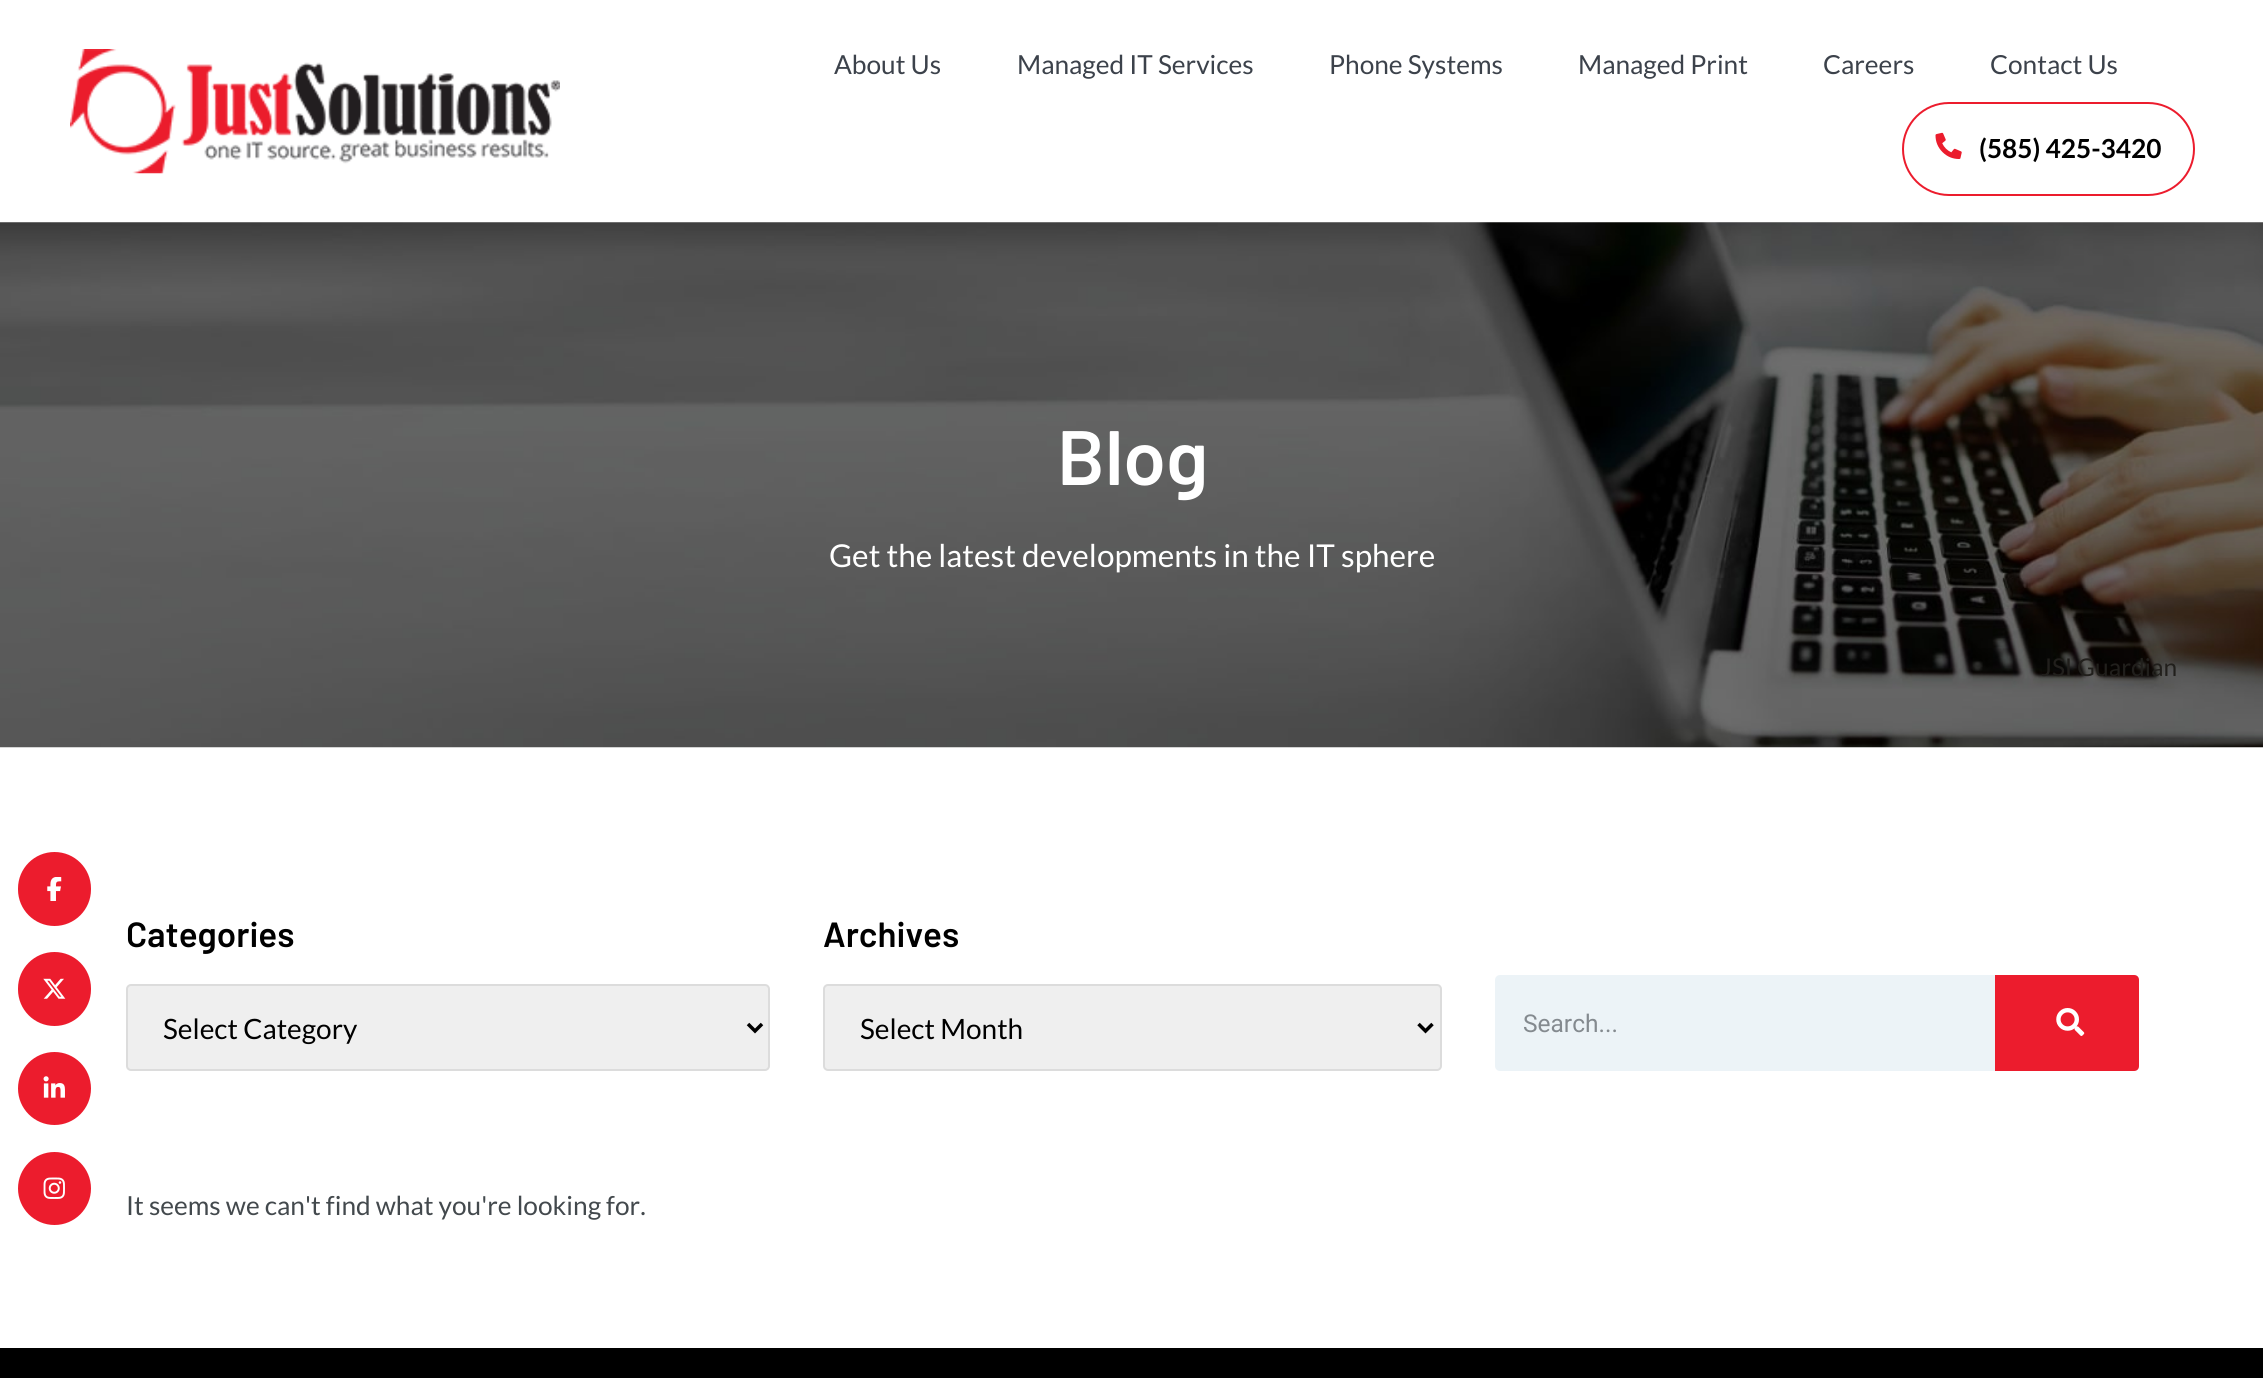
import math
import cairo

surface = cairo.ImageSurface(cairo.FORMAT_RGB24, 2263, 1378)
ctx = cairo.Context(surface)
options = cairo.FontOptions()
options.set_hint_metrics(cairo.HINT_METRICS_OFF)
options.set_hint_style(cairo.HINT_STYLE_NONE)
ctx.set_font_options(options)
ctx.set_miter_limit(4)


def round_rect(x, y, w, h, r):
    ctx.new_sub_path()
    for i, (u, v) in enumerate([(x + w - r, y + h - r), (x + r, y + h - r), (x + r, y + r), (x + w - r, y + r)]):
        ctx.arc(u, v, r, i * math.pi / 2, (i + 1) * math.pi / 2)
    ctx.close_path()


def picture(path, x, y, w, h):
    ctx.save()
    ctx.set_source_surface(cairo.ImageSurface.create_from_png(path), x, y)
    ctx.rectangle(x, y, w, h)
    ctx.fill()
    ctx.restore()


ctx.set_source_rgb(1, 1, 1)
ctx.paint()
picture("img1.png", 70, 49, 490, 125)
ctx.select_font_face("Lato")
ctx.set_font_size(26.25)
ctx.set_source_rgb(0.235, 0.259, 0.294)
ctx.move_to(834, 74)
ctx.show_text("About Us")
ctx.move_to(1017, 74)
ctx.show_text("Managed IT Services")
ctx.move_to(1329, 74)
ctx.show_text("Phone Systems")
ctx.move_to(1578, 74)
ctx.show_text("Managed Print")
ctx.move_to(1823, 74)
ctx.show_text("Careers")
ctx.move_to(1990, 74)
ctx.show_text("Contact Us")
round_rect(1903, 103, 291, 92, 46)
ctx.set_source_rgb(0.922, 0.11, 0.176)
ctx.stroke()
picture("img2.png", 1935, 132, 27, 27)
ctx.select_font_face("Lato", cairo.FONT_SLANT_NORMAL, cairo.FONT_WEIGHT_BOLD)
ctx.set_source_rgb(0, 0, 0)
ctx.move_to(1979, 158)
ctx.show_text("(585) 425-3420")
picture("img3.png", 0, 222, 2263, 526)
ctx.select_font_face("Barlow SemiBold")
ctx.set_font_size(77)
ctx.set_source_rgb(1, 1, 1)
ctx.move_to(1057, 485)
ctx.show_text("Blog")
ctx.select_font_face("Lato")
ctx.set_font_size(31.5)
ctx.move_to(829, 567)
ctx.show_text("Get the latest developments in the IT sphere")
ctx.select_font_face("Barlow SemiBold")
ctx.set_font_size(35)
ctx.set_source_rgb(0, 0, 0)
ctx.move_to(126, 947)
ctx.show_text("Categories")
ctx.set_source_rgb(0.937, 0.937, 0.937)
round_rect(127, 985, 642, 85, 4)
ctx.fill_preserve()
ctx.set_source_rgb(0.863, 0.863, 0.863)
ctx.stroke()
ctx.new_path()
ctx.move_to(748, 1024)
ctx.line_to(755, 1031)
ctx.line_to(762, 1024)
ctx.set_source_rgb(0, 0, 0)
ctx.set_line_width(3.5)
ctx.stroke()
ctx.select_font_face("Lato")
ctx.set_font_size(28)
ctx.move_to(163, 1039)
ctx.show_text("Select Category")
ctx.select_font_face("Barlow SemiBold")
ctx.set_font_size(35)
ctx.move_to(823, 947)
ctx.show_text("Archives")
ctx.set_source_rgb(0.937, 0.937, 0.937)
round_rect(824, 985, 617, 85, 4)
ctx.fill_preserve()
ctx.set_source_rgb(0.863, 0.863, 0.863)
ctx.set_line_width(2)
ctx.stroke()
ctx.new_path()
ctx.move_to(1418.5, 1024)
ctx.line_to(1425.5, 1031)
ctx.line_to(1432.5, 1024)
ctx.set_source_rgb(0, 0, 0)
ctx.set_line_width(3.5)
ctx.stroke()
ctx.select_font_face("Lato")
ctx.set_font_size(28)
ctx.move_to(860, 1039)
ctx.show_text("Select Month")
ctx.set_source_rgb(0.925, 0.953, 0.965)
round_rect(1495, 975, 644, 96, 5)
ctx.fill()
ctx.select_font_face("Roboto")
ctx.set_font_size(24.5)
ctx.set_source_rgb(0.518, 0.541, 0.561)
ctx.move_to(1523, 1032)
ctx.show_text("Search...")
ctx.set_source_rgb(0.922, 0.11, 0.176)
ctx.new_path()
ctx.move_to(1995, 975)
ctx.line_to(2134, 975)
ctx.curve_to(2137, 975, 2139, 977, 2139, 980)
ctx.line_to(2139, 1066)
ctx.curve_to(2139, 1069, 2137, 1071, 2134, 1071)
ctx.line_to(1995, 1071)
ctx.close_path()
ctx.fill()
picture("img4.png", 2056, 1008, 29, 28)
ctx.select_font_face("Lato")
ctx.set_font_size(26.25)
ctx.set_source_rgb(0.263, 0.286, 0.302)
ctx.move_to(126, 1215)
ctx.show_text("It seems we can't find what you're looking for.")
ctx.set_source_rgb(0, 0, 0)
ctx.rectangle(0, 1348, 2263, 30)
ctx.fill()
ctx.set_font_size(24.5)
ctx.set_source_rgb(0.129, 0.122, 0.11)
ctx.move_to(2041, 676)
ctx.show_text("JSI Guardian")
ctx.set_source_rgb(0.922, 0.11, 0.176)
round_rect(19, 853, 71, 72, 35.5)
ctx.fill_preserve()
ctx.set_line_width(2)
ctx.stroke()
picture("img5.png", 47, 877, 15, 24)
round_rect(19, 953, 71, 72, 35.5)
ctx.fill_preserve()
ctx.stroke()
picture("img6.png", 43, 978, 23, 21)
ctx.arc(54.5, 1088.5, 35.5, 0, 2 * math.pi)
ctx.fill_preserve()
ctx.stroke()
picture("img7.png", 43, 1076, 22, 22)
ctx.arc(54.5, 1188.5, 35.5, 0, 2 * math.pi)
ctx.fill_preserve()
ctx.stroke()
picture("img8.png", 43, 1177, 22, 22)
surface.write_to_png("page.png")
